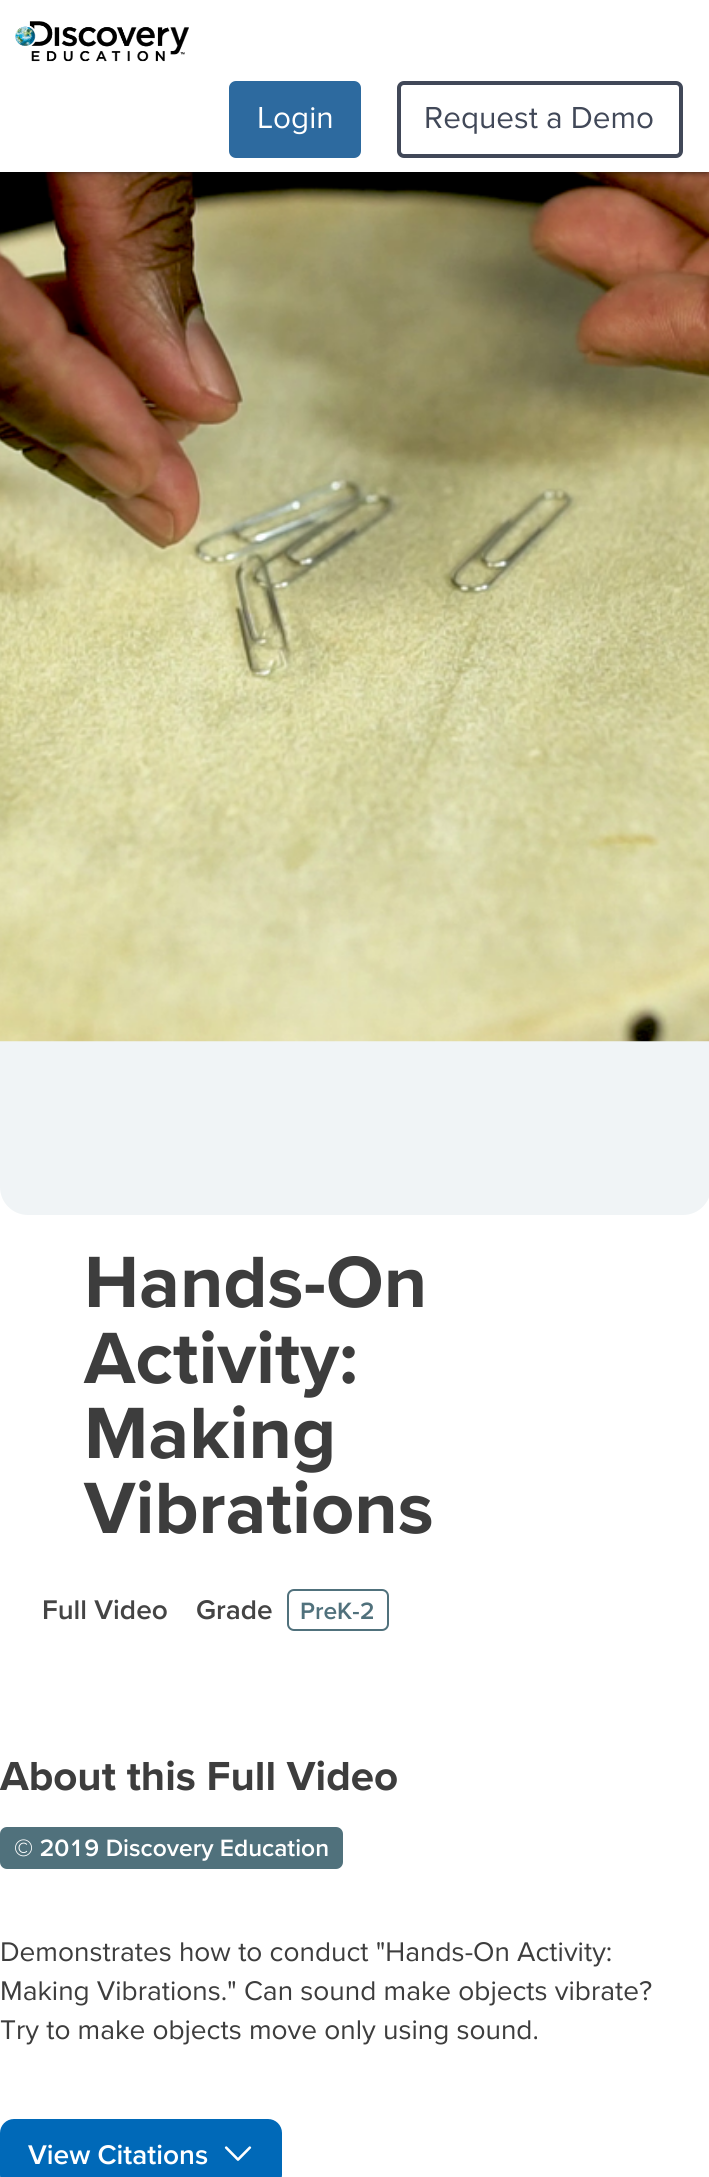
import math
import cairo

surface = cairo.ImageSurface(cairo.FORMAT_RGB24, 709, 2177)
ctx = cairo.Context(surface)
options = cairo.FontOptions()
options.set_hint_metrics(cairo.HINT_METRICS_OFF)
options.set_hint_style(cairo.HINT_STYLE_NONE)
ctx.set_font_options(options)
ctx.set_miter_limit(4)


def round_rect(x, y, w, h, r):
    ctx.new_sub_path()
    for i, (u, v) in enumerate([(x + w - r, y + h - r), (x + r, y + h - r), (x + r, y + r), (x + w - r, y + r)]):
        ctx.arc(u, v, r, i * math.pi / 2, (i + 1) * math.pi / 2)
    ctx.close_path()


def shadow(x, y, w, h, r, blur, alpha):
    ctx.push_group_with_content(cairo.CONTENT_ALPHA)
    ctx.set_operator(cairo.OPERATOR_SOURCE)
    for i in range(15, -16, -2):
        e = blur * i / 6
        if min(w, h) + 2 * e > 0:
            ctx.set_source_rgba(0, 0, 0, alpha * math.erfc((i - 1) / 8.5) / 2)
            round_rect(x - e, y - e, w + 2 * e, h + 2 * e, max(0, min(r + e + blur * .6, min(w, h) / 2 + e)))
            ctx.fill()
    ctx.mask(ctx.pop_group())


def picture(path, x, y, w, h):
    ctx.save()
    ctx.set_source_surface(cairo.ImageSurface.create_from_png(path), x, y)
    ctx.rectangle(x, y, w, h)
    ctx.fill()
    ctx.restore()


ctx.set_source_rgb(1, 1, 1)
ctx.paint()
ctx.set_source_rgb(0.941, 0.957, 0.961)
round_rect(0, -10, 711, 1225, 28)
ctx.fill()
picture("img2.png", 0, 172, 709, 870)
ctx.set_source_rgb(0, 0, 0)
shadow(4, 9, 703, 164, 0, 1, 0.2)
shadow(0, 2, 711, 171, 0, 4.5, 0.12)
shadow(0, 4, 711, 171, 0, 2, 0.14)
ctx.set_source_rgb(1, 1, 1)
ctx.rectangle(0, 0, 709, 172)
ctx.fill()
picture("img1.png", 15, 21, 174, 41)
ctx.set_source_rgb(0.176, 0.416, 0.624)
round_rect(229, 81, 132, 77, 7)
ctx.fill()
ctx.select_font_face("Proxima Nova")
ctx.set_font_size(31.5)
ctx.set_source_rgb(1, 1, 1)
ctx.move_to(257, 128)
ctx.show_text("Login")
round_rect(399, 83, 282, 73, 5)
ctx.set_source_rgb(0.255, 0.282, 0.345)
ctx.set_line_width(4)
ctx.stroke()
ctx.move_to(424, 128)
ctx.show_text("Request a Demo")
ctx.select_font_face("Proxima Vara", cairo.FONT_SLANT_NORMAL, cairo.FONT_WEIGHT_BOLD)
ctx.set_font_size(75.25)
ctx.set_source_rgb(0.239, 0.239, 0.239)
ctx.move_to(84, 1307)
ctx.show_text("Hands-On")
ctx.move_to(84, 1383)
ctx.show_text("Activity:")
ctx.move_to(84, 1458)
ctx.show_text("Making")
ctx.move_to(84, 1533)
ctx.show_text("Vibrations")
ctx.select_font_face("Proxima Vara SemiBold")
ctx.set_font_size(28)
ctx.set_source_rgb(0.267, 0.267, 0.267)
ctx.move_to(42, 1619)
ctx.show_text("Full Video")
ctx.move_to(196, 1619)
ctx.show_text("Grade")
round_rect(288, 1590, 100, 40, 6)
ctx.set_source_rgb(0.314, 0.443, 0.486)
ctx.set_line_width(2)
ctx.stroke()
ctx.set_font_size(24.5)
ctx.move_to(300, 1619)
ctx.show_text("PreK-2")
ctx.select_font_face("Proxima Vara", cairo.FONT_SLANT_NORMAL, cairo.FONT_WEIGHT_BOLD)
ctx.set_font_size(42)
ctx.set_source_rgb(0.239, 0.239, 0.239)
ctx.move_to(0, 1790)
ctx.show_text("About this Full Video")
ctx.set_source_rgb(0.314, 0.443, 0.486)
round_rect(0, 1827, 343, 42, 7)
ctx.fill()
ctx.select_font_face("Proxima Vara SemiBold")
ctx.set_font_size(24.5)
ctx.set_source_rgb(1, 1, 1)
ctx.move_to(14, 1856)
ctx.show_text("© 2019 Discovery Education")
ctx.select_font_face("Proxima Vara")
ctx.set_font_size(28)
ctx.set_source_rgb(0.239, 0.239, 0.239)
ctx.move_to(0, 1961)
ctx.show_text("Demonstrates how to conduct \"Hands-On Activity:")
ctx.move_to(0, 2000)
ctx.show_text("Making Vibrations.\" Can sound make objects vibrate?")
ctx.move_to(0, 2039)
ctx.show_text("Try to make objects move only using sound.")
ctx.set_source_rgb(0, 0.412, 0.722)
round_rect(0, 2119, 282, 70, 14)
ctx.fill()
ctx.select_font_face("Proxima Vara SemiBold")
ctx.set_source_rgb(1, 1, 1)
ctx.move_to(28, 2164)
ctx.show_text("View Citations")
picture("img3.png", 224, 2146, 28, 15)
surface.write_to_png("page.png")
